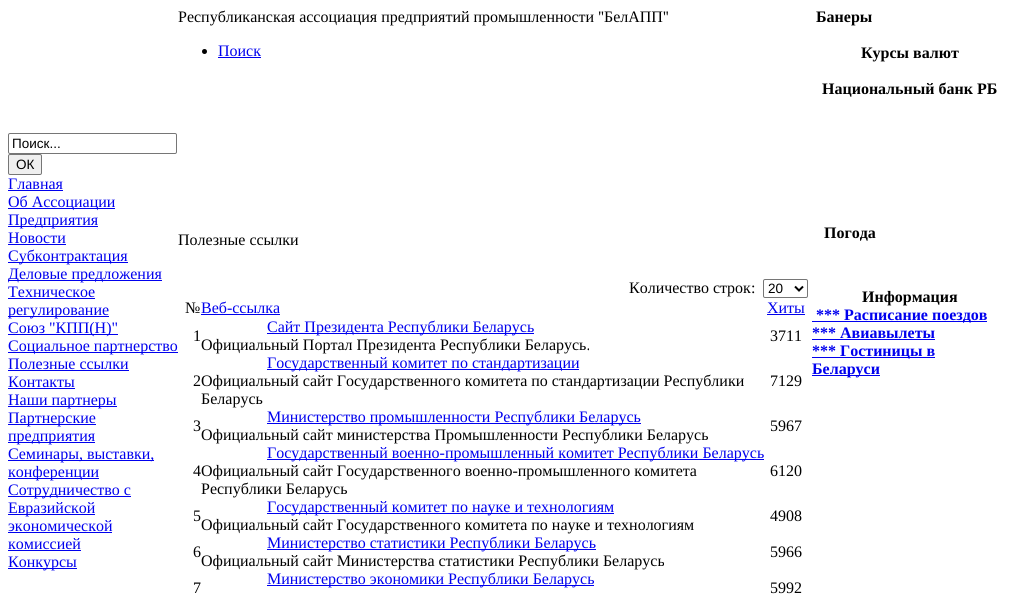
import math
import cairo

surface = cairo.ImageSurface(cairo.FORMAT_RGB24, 1015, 599)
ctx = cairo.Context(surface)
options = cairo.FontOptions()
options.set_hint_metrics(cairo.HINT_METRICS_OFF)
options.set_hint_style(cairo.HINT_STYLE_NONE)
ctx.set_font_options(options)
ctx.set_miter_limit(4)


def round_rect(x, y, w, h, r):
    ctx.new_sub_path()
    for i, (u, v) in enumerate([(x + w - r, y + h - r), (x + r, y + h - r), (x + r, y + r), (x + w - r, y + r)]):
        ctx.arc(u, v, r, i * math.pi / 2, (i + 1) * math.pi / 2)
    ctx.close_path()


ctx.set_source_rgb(1, 1, 1)
ctx.paint()
round_rect(8.5, 133.5, 168, 20, 1.5)
ctx.set_source_rgb(0.463, 0.463, 0.463)
ctx.set_line_width(1)
ctx.stroke()
ctx.select_font_face("Liberation Sans")
ctx.set_font_size(13.5)
ctx.set_source_rgb(0, 0, 0)
ctx.move_to(12, 148)
ctx.show_text("Поиск...")
ctx.set_source_rgb(0.937, 0.937, 0.937)
round_rect(8.5, 154.5, 33, 20, 1.5)
ctx.fill_preserve()
ctx.set_source_rgb(0.463, 0.463, 0.463)
ctx.stroke()
ctx.set_source_rgb(0, 0, 0)
ctx.move_to(16, 169)
ctx.show_text("ОК")
ctx.select_font_face("Liberation Serif")
ctx.set_font_size(16)
ctx.set_source_rgb(0, 0, 0.933)
ctx.move_to(8, 189)
ctx.show_text("Главная")
ctx.rectangle(8, 190, 55, 1)
ctx.fill()
ctx.rectangle(8, 208, 107, 1)
ctx.fill()
ctx.move_to(8, 207)
ctx.show_text("Об Ассоциации")
ctx.rectangle(8, 226, 90, 1)
ctx.fill()
ctx.move_to(8, 225)
ctx.show_text("Предприятия")
ctx.move_to(8, 243)
ctx.show_text("Новости")
ctx.rectangle(8, 244, 58, 1)
ctx.fill()
ctx.rectangle(8, 262, 120, 1)
ctx.fill()
ctx.move_to(8, 261)
ctx.show_text("Субконтрактация")
ctx.rectangle(8, 280, 154, 1)
ctx.fill()
ctx.move_to(8, 279)
ctx.show_text("Деловые предложения")
ctx.move_to(8, 297)
ctx.show_text("Техническое")
ctx.rectangle(8, 298, 87, 1)
ctx.fill()
ctx.rectangle(8, 316, 101, 1)
ctx.fill()
ctx.move_to(8, 315)
ctx.show_text("регулирование")
ctx.rectangle(8, 334, 110, 1)
ctx.fill()
ctx.move_to(8, 333)
ctx.show_text("Союз \"КПП(Н)\"")
ctx.rectangle(8, 352, 170, 1)
ctx.fill()
ctx.move_to(8, 351)
ctx.show_text("Социальное партнерство")
ctx.move_to(8, 369)
ctx.show_text("Полезные ссылки")
ctx.rectangle(8, 370, 121, 1)
ctx.fill()
ctx.move_to(8, 387)
ctx.show_text("Контакты")
ctx.rectangle(8, 388, 67, 1)
ctx.fill()
ctx.rectangle(8, 406, 109, 1)
ctx.fill()
ctx.move_to(8, 405)
ctx.show_text("Наши партнеры")
ctx.rectangle(8, 424, 88, 1)
ctx.fill()
ctx.move_to(8, 423)
ctx.show_text("Партнерские")
ctx.rectangle(8, 442, 87, 1)
ctx.fill()
ctx.move_to(8, 441)
ctx.show_text("предприятия")
ctx.rectangle(8, 460, 146, 1)
ctx.fill()
ctx.move_to(8, 459)
ctx.show_text("Семинары, выставки,")
ctx.rectangle(8, 478, 91, 1)
ctx.fill()
ctx.move_to(8, 477)
ctx.show_text("конференции")
ctx.rectangle(8, 496, 123, 1)
ctx.fill()
ctx.move_to(8, 495)
ctx.show_text("Сотрудничество с")
ctx.rectangle(8, 514, 87, 1)
ctx.fill()
ctx.move_to(8, 513)
ctx.show_text("Евразийской")
ctx.move_to(8, 531)
ctx.show_text("экономической")
ctx.rectangle(8, 532, 104, 1)
ctx.fill()
ctx.move_to(8, 549)
ctx.show_text("комиссией")
ctx.rectangle(8, 550, 73, 1)
ctx.fill()
ctx.rectangle(8, 568, 69, 1)
ctx.fill()
ctx.move_to(8, 567)
ctx.show_text("Конкурсы")
ctx.set_source_rgb(0, 0, 0)
ctx.move_to(178, 22)
ctx.show_text("Республиканская ассоциация предприятий промышленности ''БелАПП''")
ctx.new_path()
ctx.arc(204.5, 51.5, 2.5, 0, 2 * math.pi)
ctx.fill()
ctx.set_source_rgb(0, 0, 0.933)
ctx.move_to(218, 56)
ctx.show_text("Поиск")
ctx.rectangle(218, 57, 43, 1)
ctx.fill()
ctx.set_source_rgb(0, 0, 0)
ctx.move_to(178, 245)
ctx.show_text("Полезные ссылки")
ctx.move_to(629, 293)
ctx.show_text("Количество строк:")
round_rect(763.5, 279.5, 44, 18, 1.5)
ctx.set_source_rgb(0.463, 0.463, 0.463)
ctx.stroke()
ctx.new_path()
ctx.move_to(795, 286.5)
ctx.line_to(799, 290.5)
ctx.line_to(803, 286.5)
ctx.set_source_rgb(0, 0, 0)
ctx.set_line_width(2)
ctx.stroke()
ctx.select_font_face("Liberation Sans")
ctx.set_font_size(13.5)
ctx.move_to(768, 293)
ctx.show_text("20")
ctx.select_font_face("Liberation Serif")
ctx.set_font_size(16)
ctx.move_to(185, 313)
ctx.show_text("№")
ctx.set_source_rgb(0, 0, 0.933)
ctx.move_to(201, 313)
ctx.show_text("Веб-ссылка")
ctx.rectangle(201, 314, 79, 1)
ctx.fill()
ctx.move_to(767, 313)
ctx.show_text("Хиты")
ctx.rectangle(767, 314, 38, 1)
ctx.fill()
ctx.set_source_rgb(0, 0, 0)
ctx.move_to(193, 341)
ctx.show_text("1")
ctx.set_source_rgb(0, 0, 0.933)
ctx.rectangle(267, 333, 267, 1)
ctx.fill()
ctx.move_to(267, 332)
ctx.show_text("Сайт Президента Республики Беларусь")
ctx.set_source_rgb(0, 0, 0)
ctx.move_to(201, 350)
ctx.show_text("Официальный Портал Президента Республики Беларусь.")
ctx.move_to(770, 341)
ctx.show_text("3711")
ctx.set_source_rgb(0, 0, 0.933)
ctx.rectangle(267, 369, 312, 1)
ctx.fill()
ctx.move_to(267, 368)
ctx.show_text("Государственный комитет по стандартизации")
ctx.set_source_rgb(0, 0, 0)
ctx.move_to(201, 404)
ctx.show_text("Беларусь")
ctx.move_to(193, 386)
ctx.show_text("2Официальный сайт Государственного комитета по стандартизации Республики")
ctx.move_to(770, 386)
ctx.show_text("7129")
ctx.move_to(193, 431)
ctx.show_text("3")
ctx.set_source_rgb(0, 0, 0.933)
ctx.rectangle(267, 423, 374, 1)
ctx.fill()
ctx.move_to(267, 422)
ctx.show_text("Министерство промышленности Республики Беларусь")
ctx.set_source_rgb(0, 0, 0)
ctx.move_to(201, 440)
ctx.show_text("Официальный сайт министерства Промышленности Республики Беларусь")
ctx.move_to(770, 431)
ctx.show_text("5967")
ctx.set_source_rgb(0, 0, 0.933)
ctx.rectangle(267, 459, 497, 1)
ctx.fill()
ctx.move_to(267, 458)
ctx.show_text("Государственный военно-промышленный комитет Республики Беларусь")
ctx.set_source_rgb(0, 0, 0)
ctx.move_to(201, 494)
ctx.show_text("Республики Беларусь")
ctx.move_to(193, 476)
ctx.show_text("4Официальный сайт Государственного военно-промышленного комитета")
ctx.move_to(770, 476)
ctx.show_text("6120")
ctx.move_to(193, 521)
ctx.show_text("5")
ctx.set_source_rgb(0, 0, 0.933)
ctx.rectangle(267, 513, 347, 1)
ctx.fill()
ctx.move_to(267, 512)
ctx.show_text("Государственный комитет по науке и технологиям")
ctx.set_source_rgb(0, 0, 0)
ctx.move_to(201, 530)
ctx.show_text("Официальный сайт Государственного комитета по науке и технологиям")
ctx.move_to(770, 521)
ctx.show_text("4908")
ctx.move_to(193, 557)
ctx.show_text("6")
ctx.set_source_rgb(0, 0, 0.933)
ctx.rectangle(267, 549, 329, 1)
ctx.fill()
ctx.move_to(267, 548)
ctx.show_text("Министерство статистики Республики Беларусь")
ctx.set_source_rgb(0, 0, 0)
ctx.move_to(201, 566)
ctx.show_text("Официальный сайт Министерства статистики Республики Беларусь")
ctx.move_to(770, 557)
ctx.show_text("5966")
ctx.move_to(193, 593)
ctx.show_text("7")
ctx.set_source_rgb(0, 0, 0.933)
ctx.rectangle(267, 585, 327, 1)
ctx.fill()
ctx.move_to(267, 584)
ctx.show_text("Министерство экономики Республики Беларусь")
ctx.set_source_rgb(0, 0, 0)
ctx.move_to(770, 593)
ctx.show_text("5992")
ctx.select_font_face("Liberation Serif", cairo.FONT_SLANT_NORMAL, cairo.FONT_WEIGHT_BOLD)
ctx.move_to(816, 22)
ctx.show_text("Банеры")
ctx.move_to(861, 58)
ctx.show_text("Курсы валют")
ctx.move_to(822, 94)
ctx.show_text("Национальный банк РБ")
ctx.move_to(824, 238)
ctx.show_text("Погода")
ctx.move_to(862, 302)
ctx.show_text("Информация")
ctx.set_source_rgb(0, 0, 0.933)
ctx.rectangle(812, 321, 175, 1)
ctx.fill()
ctx.move_to(816, 320)
ctx.show_text("*** Расписание поездов")
ctx.move_to(812, 338)
ctx.show_text("*** Авиавылеты")
ctx.rectangle(812, 339, 123, 1)
ctx.fill()
ctx.rectangle(812, 357, 123, 1)
ctx.fill()
ctx.move_to(812, 356)
ctx.show_text("*** Гостиницы в")
ctx.rectangle(812, 375, 68, 1)
ctx.fill()
ctx.move_to(812, 374)
ctx.show_text("Беларуси")
surface.write_to_png("page.png")
